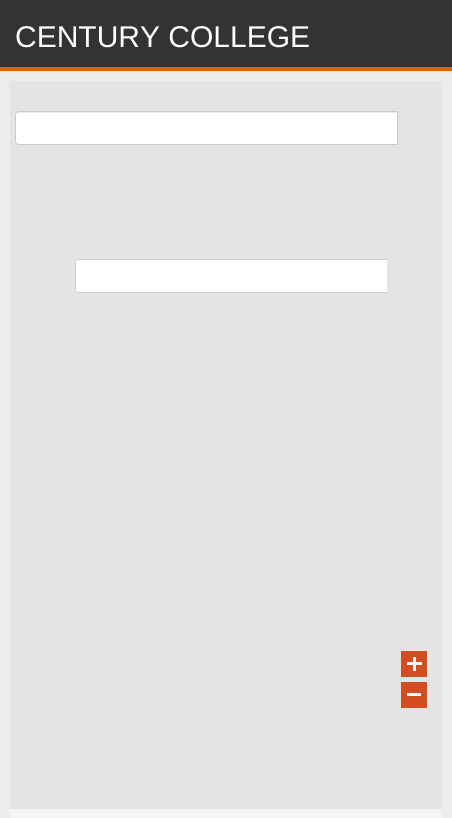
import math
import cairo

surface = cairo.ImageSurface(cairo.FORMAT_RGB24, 452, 818)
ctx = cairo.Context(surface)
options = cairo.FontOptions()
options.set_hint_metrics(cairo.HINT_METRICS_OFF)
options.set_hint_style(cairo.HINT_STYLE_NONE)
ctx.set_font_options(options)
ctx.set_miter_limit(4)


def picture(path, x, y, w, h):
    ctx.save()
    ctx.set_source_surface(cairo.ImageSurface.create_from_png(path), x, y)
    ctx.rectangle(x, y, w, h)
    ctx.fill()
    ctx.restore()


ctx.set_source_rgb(0.925, 0.925, 0.925)
ctx.paint()
picture("img1.png", 0, 0, 452, 71)
ctx.select_font_face("Liberation Sans")
ctx.set_font_size(30)
ctx.set_source_rgb(1, 1, 1)
ctx.move_to(15, 47)
ctx.show_text("CENTURY COLLEGE")
picture("img2.png", 10, 81, 432, 737)
ctx.new_path()
ctx.move_to(19, 111)
ctx.line_to(398, 111)
ctx.line_to(398, 145)
ctx.line_to(19, 145)
ctx.curve_to(17, 145, 15, 143, 15, 141)
ctx.line_to(15, 115)
ctx.curve_to(15, 113, 17, 111, 19, 111)
ctx.close_path()
ctx.fill()
ctx.set_source_rgb(0.925, 0.925, 0.925)
ctx.new_path()
ctx.move_to(19, 113)
ctx.line_to(397, 113)
ctx.line_to(397, 112)
ctx.line_to(19, 112)
ctx.curve_to(17, 112, 16, 113, 16, 115)
ctx.line_to(16, 116)
ctx.curve_to(16, 114, 17, 113, 19, 113)
ctx.close_path()
ctx.fill()
ctx.new_path()
ctx.move_to(19, 111.5)
ctx.line_to(397.5, 111.5)
ctx.line_to(397.5, 144.5)
ctx.line_to(19, 144.5)
ctx.curve_to(17, 144.5, 15.5, 143, 15.5, 141)
ctx.line_to(15.5, 115)
ctx.curve_to(15.5, 113, 17, 111.5, 19, 111.5)
ctx.close_path()
ctx.set_source_rgb(0.8, 0.8, 0.8)
ctx.set_line_width(1)
ctx.stroke()
ctx.set_source_rgb(1, 1, 1)
ctx.new_path()
ctx.move_to(79, 259)
ctx.line_to(387, 259)
ctx.line_to(387, 293)
ctx.line_to(79, 293)
ctx.curve_to(77, 293, 75, 291, 75, 289)
ctx.line_to(75, 263)
ctx.curve_to(75, 261, 77, 259, 79, 259)
ctx.close_path()
ctx.fill()
ctx.set_source_rgb(0.8, 0.8, 0.8)
ctx.set_fill_rule(cairo.FILL_RULE_EVEN_ODD)
ctx.new_path()
ctx.move_to(79, 259)
ctx.line_to(387, 259)
ctx.line_to(387, 293)
ctx.line_to(79, 293)
ctx.curve_to(77, 293, 75, 291, 75, 289)
ctx.line_to(75, 263)
ctx.curve_to(75, 261, 77, 259, 79, 259)
ctx.close_path()
ctx.move_to(79, 260)
ctx.line_to(387, 260)
ctx.line_to(387, 292)
ctx.line_to(79, 292)
ctx.curve_to(77, 292, 76, 291, 76, 289)
ctx.line_to(76, 263)
ctx.curve_to(76, 261, 77, 260, 79, 260)
ctx.close_path()
ctx.fill()
surface.write_to_png("page.png")
